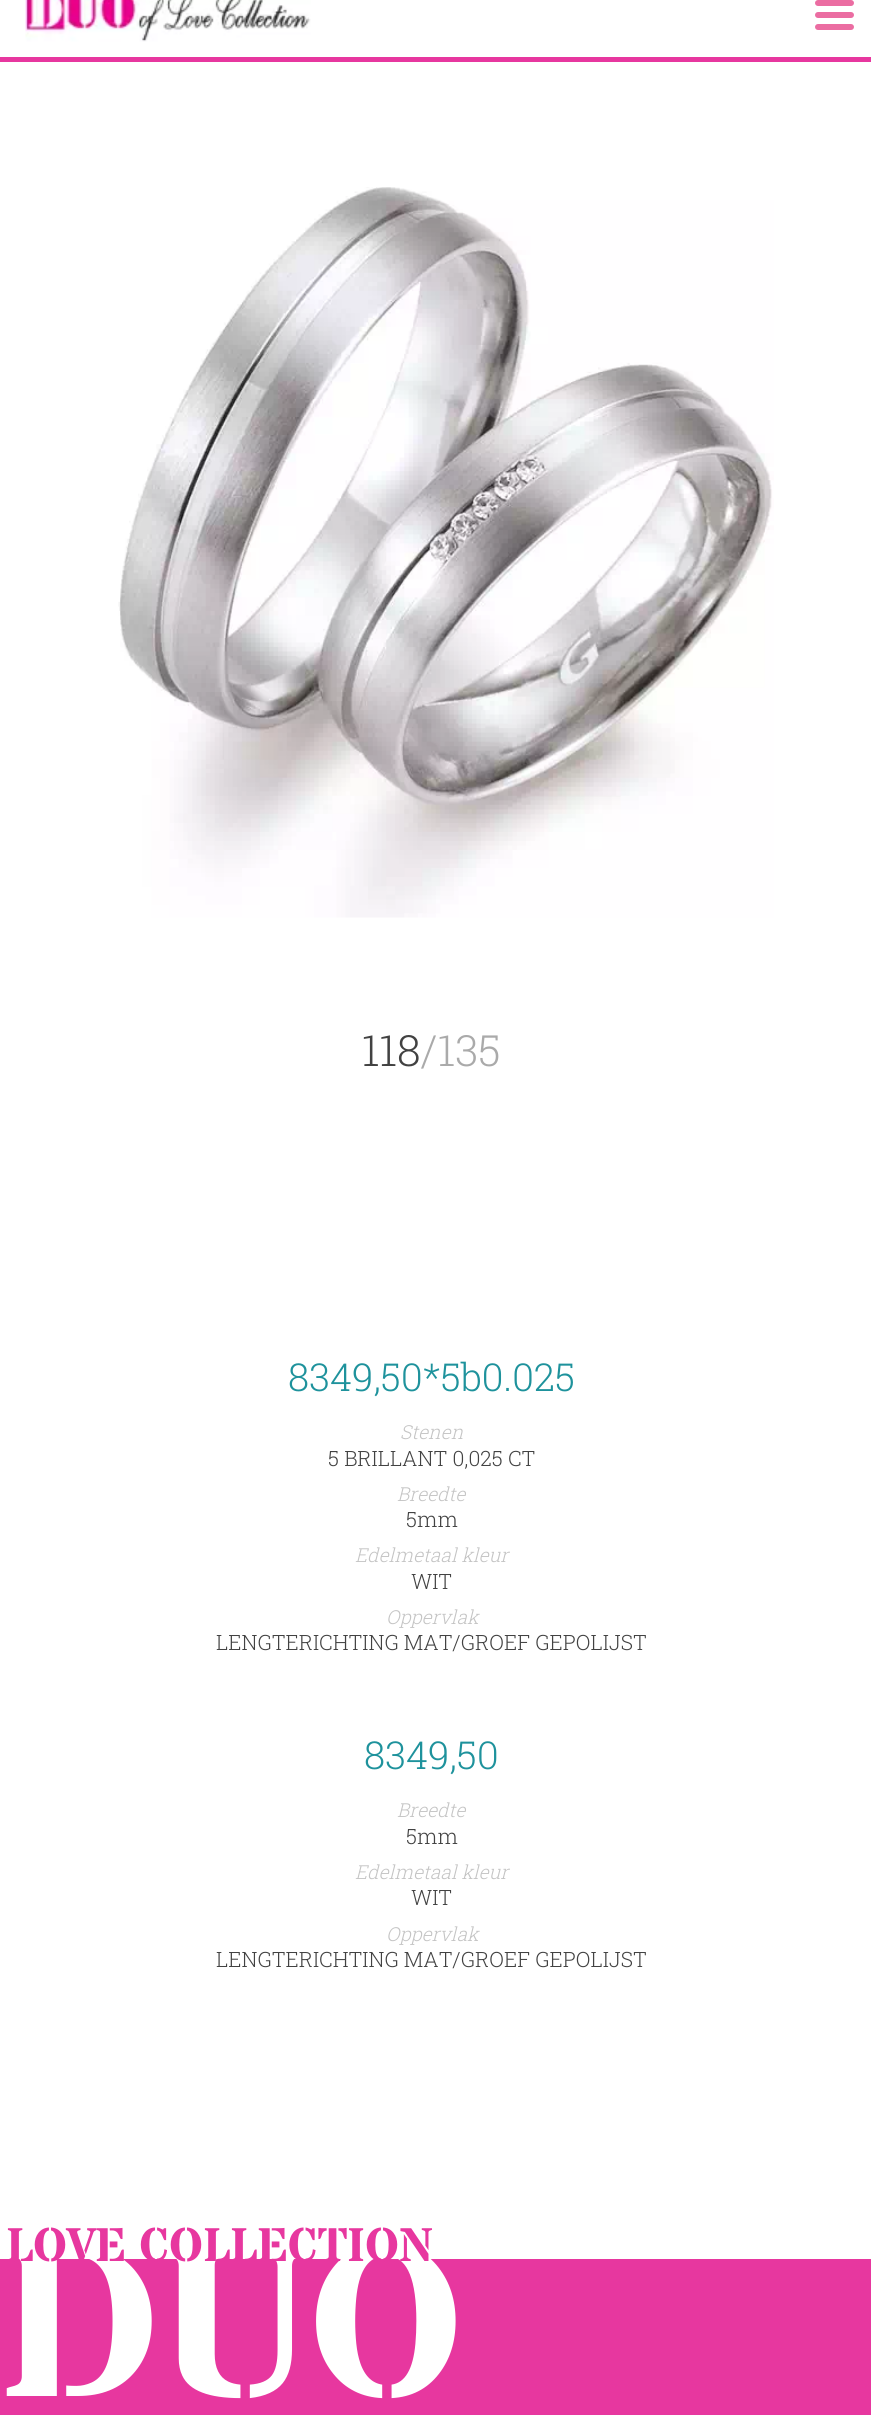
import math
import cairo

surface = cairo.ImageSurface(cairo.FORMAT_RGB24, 871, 2415)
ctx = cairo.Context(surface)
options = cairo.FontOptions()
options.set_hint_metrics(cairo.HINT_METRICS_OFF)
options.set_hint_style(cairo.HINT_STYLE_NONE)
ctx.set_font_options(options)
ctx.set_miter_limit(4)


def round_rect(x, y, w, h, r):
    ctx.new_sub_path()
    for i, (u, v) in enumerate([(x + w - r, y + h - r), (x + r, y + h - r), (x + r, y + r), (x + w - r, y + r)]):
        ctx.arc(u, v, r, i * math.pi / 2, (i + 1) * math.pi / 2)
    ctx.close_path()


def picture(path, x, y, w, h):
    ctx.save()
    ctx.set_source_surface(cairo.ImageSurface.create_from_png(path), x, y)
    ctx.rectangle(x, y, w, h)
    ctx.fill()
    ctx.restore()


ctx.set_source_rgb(1, 1, 1)
ctx.paint()
ctx.set_source_rgb(0.906, 0.216, 0.624)
ctx.rectangle(0, 57, 871, 5)
ctx.fill()
picture("img1.png", 25, 0, 286, 42)
ctx.set_source_rgb(0.918, 0.427, 0.635)
round_rect(815, 24, 39, 6, 3)
ctx.fill()
round_rect(815, 12, 39, 6, 3)
ctx.fill()
round_rect(815, 0, 39, 6, 3)
ctx.fill()
picture("img2.png", 118, 187, 656, 731)
ctx.select_font_face("Roboto Slab Light")
ctx.set_font_size(43)
ctx.set_source_rgb(0.259, 0.259, 0.259)
ctx.move_to(362, 1066)
ctx.show_text("118")
ctx.set_source_rgb(0.667, 0.667, 0.667)
ctx.move_to(421, 1066)
ctx.show_text("/135")
ctx.set_font_size(38.5)
ctx.set_source_rgb(0.118, 0.573, 0.612)
ctx.move_to(288, 1391)
ctx.show_text("8349,50*5b0.025")
ctx.select_font_face("Roboto Slab Light", cairo.FONT_SLANT_ITALIC)
ctx.set_font_size(19.25)
ctx.set_source_rgb(0.769, 0.769, 0.769)
ctx.move_to(400, 1439)
ctx.show_text("Stenen")
ctx.select_font_face("Roboto Slab Light")
ctx.set_font_size(21.1)
ctx.set_source_rgb(0.259, 0.259, 0.259)
ctx.move_to(328, 1466)
ctx.show_text("5 BRILLANT 0,025 CT")
ctx.select_font_face("Roboto Slab Light", cairo.FONT_SLANT_ITALIC)
ctx.set_font_size(19.25)
ctx.set_source_rgb(0.769, 0.769, 0.769)
ctx.move_to(397, 1501)
ctx.show_text("Breedte")
ctx.select_font_face("Roboto Slab Light")
ctx.set_font_size(21.1)
ctx.set_source_rgb(0.259, 0.259, 0.259)
ctx.move_to(406, 1527)
ctx.show_text("5mm")
ctx.select_font_face("Roboto Slab Light", cairo.FONT_SLANT_ITALIC)
ctx.set_font_size(19.25)
ctx.set_source_rgb(0.769, 0.769, 0.769)
ctx.move_to(355, 1562)
ctx.show_text("Edelmetaal kleur")
ctx.select_font_face("Roboto Slab Light")
ctx.set_font_size(21.1)
ctx.set_source_rgb(0.259, 0.259, 0.259)
ctx.move_to(411, 1589)
ctx.show_text("WIT")
ctx.select_font_face("Roboto Slab Light", cairo.FONT_SLANT_ITALIC)
ctx.set_font_size(19.25)
ctx.set_source_rgb(0.769, 0.769, 0.769)
ctx.move_to(386, 1624)
ctx.show_text("Oppervlak")
ctx.select_font_face("Roboto Slab Light")
ctx.set_font_size(21.1)
ctx.set_source_rgb(0.259, 0.259, 0.259)
ctx.move_to(216, 1650)
ctx.show_text("LENGTERICHTING MAT/GROEF GEPOLIJST")
ctx.set_font_size(38.5)
ctx.set_source_rgb(0.118, 0.573, 0.612)
ctx.move_to(364, 1769)
ctx.show_text("8349,50")
ctx.select_font_face("Roboto Slab Light", cairo.FONT_SLANT_ITALIC)
ctx.set_font_size(19.25)
ctx.set_source_rgb(0.769, 0.769, 0.769)
ctx.move_to(397, 1817)
ctx.show_text("Breedte")
ctx.select_font_face("Roboto Slab Light")
ctx.set_font_size(21.1)
ctx.set_source_rgb(0.259, 0.259, 0.259)
ctx.move_to(406, 1844)
ctx.show_text("5mm")
ctx.select_font_face("Roboto Slab Light", cairo.FONT_SLANT_ITALIC)
ctx.set_font_size(19.25)
ctx.set_source_rgb(0.769, 0.769, 0.769)
ctx.move_to(355, 1879)
ctx.show_text("Edelmetaal kleur")
ctx.select_font_face("Roboto Slab Light")
ctx.set_font_size(21.1)
ctx.set_source_rgb(0.259, 0.259, 0.259)
ctx.move_to(411, 1905)
ctx.show_text("WIT")
ctx.select_font_face("Roboto Slab Light", cairo.FONT_SLANT_ITALIC)
ctx.set_font_size(19.25)
ctx.set_source_rgb(0.769, 0.769, 0.769)
ctx.move_to(386, 1941)
ctx.show_text("Oppervlak")
ctx.select_font_face("Roboto Slab Light")
ctx.set_font_size(21.1)
ctx.set_source_rgb(0.259, 0.259, 0.259)
ctx.move_to(216, 1967)
ctx.show_text("LENGTERICHTING MAT/GROEF GEPOLIJST")
ctx.set_source_rgb(0.906, 0.216, 0.624)
ctx.rectangle(0, 2259, 871, 156)
ctx.fill()
ctx.select_font_face("Stardos Stencil", cairo.FONT_SLANT_NORMAL, cairo.FONT_WEIGHT_BOLD)
ctx.set_font_size(216)
ctx.set_source_rgb(1, 1, 1)
ctx.move_to(0, 2396)
ctx.show_text("DUO")
ctx.set_font_size(47.25)
ctx.set_source_rgb(0.906, 0.216, 0.624)
ctx.move_to(6, 2261)
ctx.show_text("LOVE COLLECTION")
surface.write_to_png("page.png")
